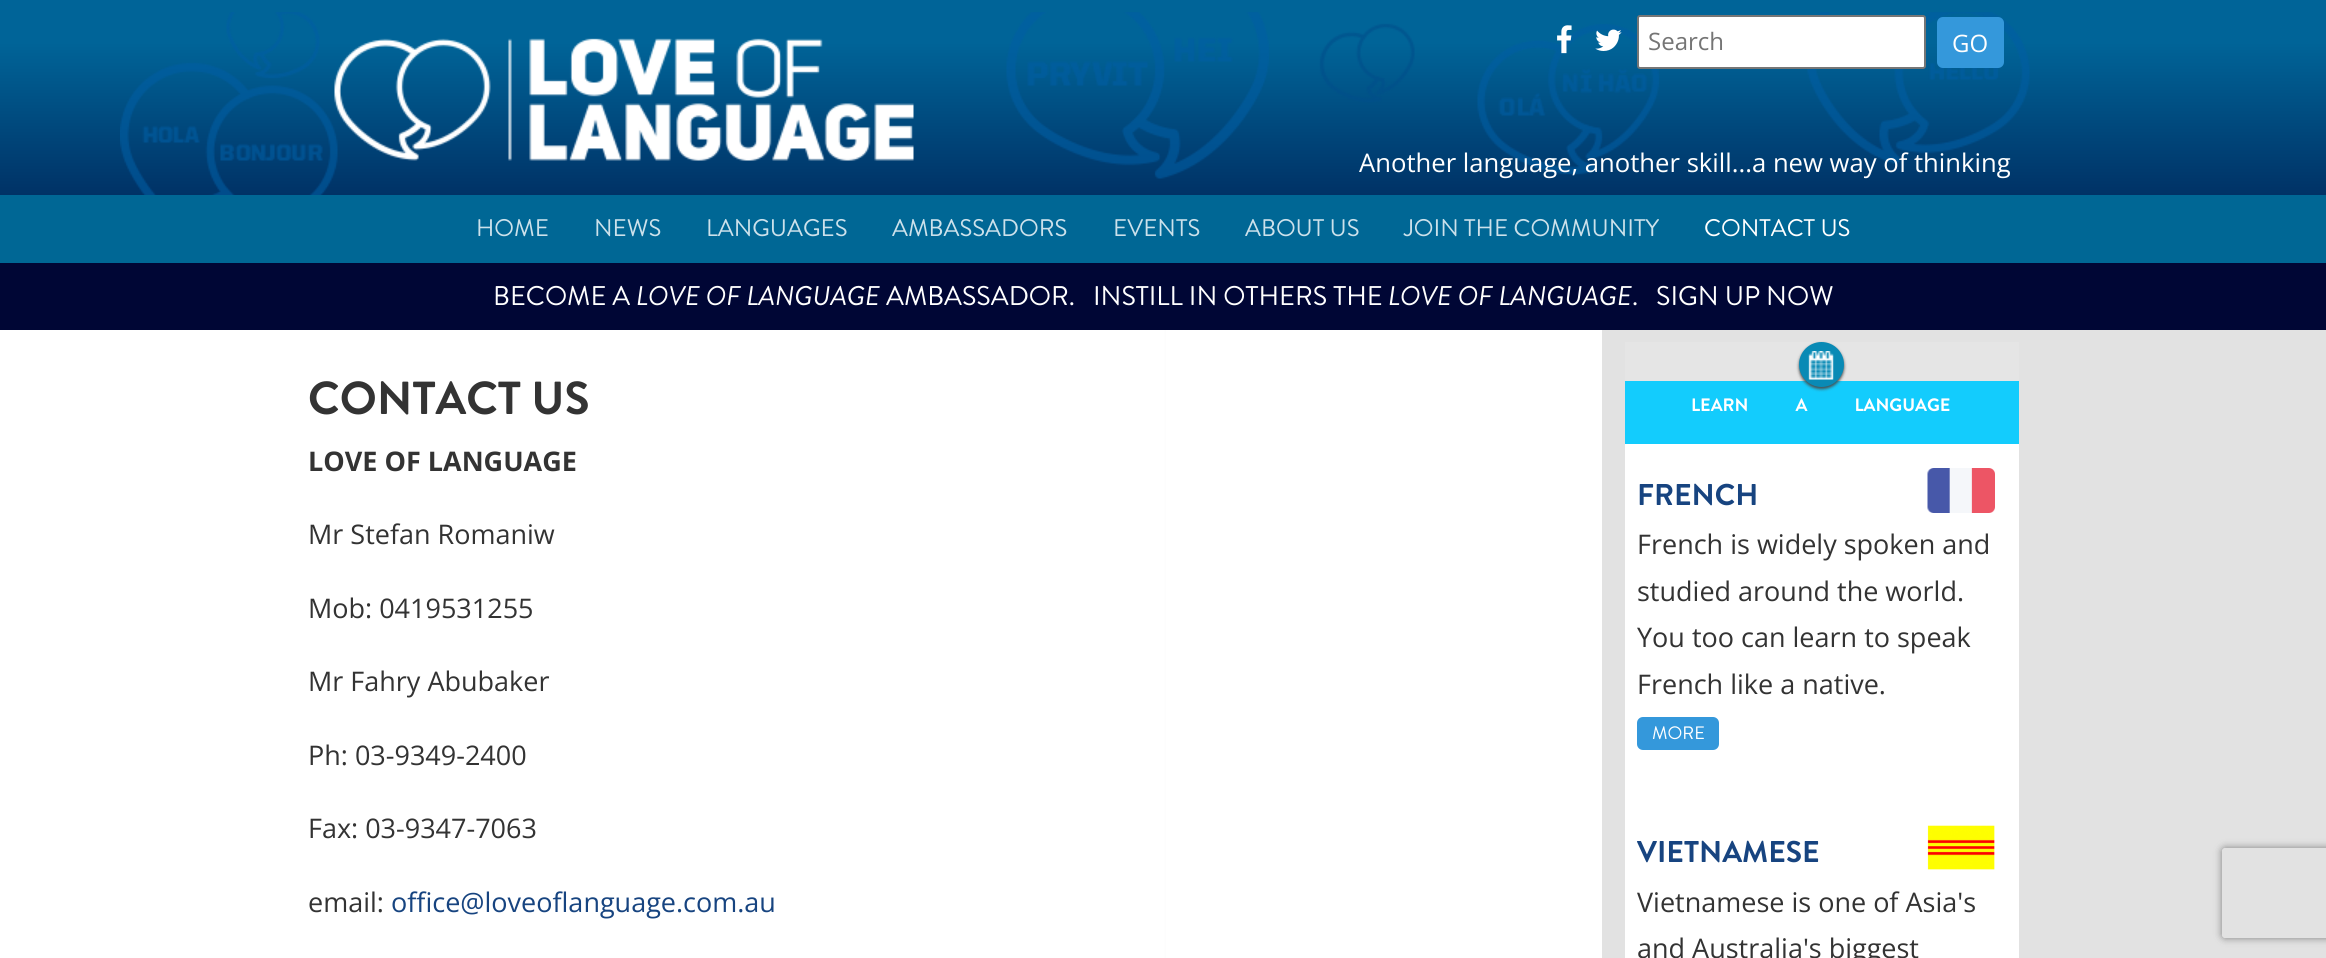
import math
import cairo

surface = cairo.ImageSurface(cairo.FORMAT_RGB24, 2326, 958)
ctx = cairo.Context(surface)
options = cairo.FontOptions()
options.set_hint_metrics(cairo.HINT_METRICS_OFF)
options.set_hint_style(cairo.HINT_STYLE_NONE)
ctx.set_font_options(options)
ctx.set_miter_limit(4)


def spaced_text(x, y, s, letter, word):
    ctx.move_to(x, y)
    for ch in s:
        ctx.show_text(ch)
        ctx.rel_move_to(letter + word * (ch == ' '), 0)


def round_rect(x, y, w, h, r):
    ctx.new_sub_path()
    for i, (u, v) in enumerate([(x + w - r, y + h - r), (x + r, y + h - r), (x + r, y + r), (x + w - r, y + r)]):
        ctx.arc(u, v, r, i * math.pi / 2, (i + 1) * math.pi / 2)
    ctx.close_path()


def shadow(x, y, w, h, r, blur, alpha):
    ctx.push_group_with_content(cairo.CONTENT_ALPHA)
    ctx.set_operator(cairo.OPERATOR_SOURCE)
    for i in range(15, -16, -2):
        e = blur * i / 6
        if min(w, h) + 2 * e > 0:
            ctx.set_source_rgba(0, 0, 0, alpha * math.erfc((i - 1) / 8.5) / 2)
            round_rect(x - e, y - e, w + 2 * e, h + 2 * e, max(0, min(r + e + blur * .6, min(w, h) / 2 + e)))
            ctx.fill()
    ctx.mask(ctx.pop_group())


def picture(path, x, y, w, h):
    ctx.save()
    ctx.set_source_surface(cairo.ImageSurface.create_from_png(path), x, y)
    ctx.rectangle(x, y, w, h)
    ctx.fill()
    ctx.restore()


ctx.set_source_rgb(0, 0.404, 0.584)
ctx.paint()
gradient = cairo.LinearGradient(1163, 0, 1163, 195)
gradient.add_color_stop_rgba(0, 0, 0.392, 0.596, 1)
gradient.add_color_stop_rgba(0.22, 0, 0.392, 0.596, 1)
gradient.add_color_stop_rgba(0.95, 0, 0.208, 0.412, 1)
gradient.add_color_stop_rgba(1, 0, 0.196, 0.4, 1)
ctx.set_source(gradient)
ctx.rectangle(0, 0, 2326, 195)
ctx.fill()
picture("img1.png", 120, 12, 1910, 183)
picture("img2.png", 1557, 25, 15, 29)
picture("img3.png", 1595, 29, 27, 22)
ctx.set_source_rgb(1, 1, 1)
round_rect(1638, 16, 287, 52, 2)
ctx.fill_preserve()
ctx.set_source_rgb(0.463, 0.463, 0.463)
ctx.stroke()
ctx.select_font_face("Open Sans")
ctx.set_font_size(24)
ctx.set_source_rgb(0.459, 0.459, 0.459)
ctx.move_to(1648, 50)
ctx.show_text("Search")
ctx.set_source_rgb(0.204, 0.596, 0.859)
round_rect(1937, 17, 67, 51, 6)
ctx.fill()
ctx.set_source_rgb(1, 1, 1)
ctx.move_to(1952, 52)
ctx.show_text("GO")
ctx.set_font_size(25.65)
ctx.move_to(1359, 172)
ctx.show_text("Another language, another skill...a new way of thinking")
ctx.select_font_face("Brandon Grotesque")
ctx.set_font_size(24)
ctx.set_source_rgb(0.8, 0.882, 0.918)
ctx.move_to(476, 236)
ctx.show_text("HOME")
ctx.move_to(594, 236)
ctx.show_text("NEWS")
ctx.move_to(706, 236)
ctx.show_text("LANGUAGES")
ctx.move_to(892, 236)
ctx.show_text("AMBASSADORS")
ctx.move_to(1113, 236)
ctx.show_text("EVENTS")
ctx.move_to(1245, 236)
ctx.show_text("ABOUT US")
ctx.move_to(1404, 236)
ctx.show_text("JOIN THE COMMUNITY")
ctx.set_source_rgb(1, 1, 1)
ctx.move_to(1704, 236)
ctx.show_text("CONTACT US")
ctx.set_source_rgb(0, 0.027, 0.208)
ctx.rectangle(0, 263, 2326, 67)
ctx.fill()
ctx.set_font_size(27)
ctx.set_source_rgb(1, 1, 1)
ctx.move_to(493, 305)
ctx.show_text("BECOME A")
ctx.select_font_face("Brandon Grotesque", cairo.FONT_SLANT_ITALIC)
ctx.move_to(636, 305)
ctx.show_text("LOVE OF LANGUAGE")
ctx.select_font_face("Brandon Grotesque")
ctx.move_to(886, 305)
ctx.show_text("AMBASSADOR.   INSTILL IN OTHERS THE")
ctx.select_font_face("Brandon Grotesque", cairo.FONT_SLANT_ITALIC)
ctx.move_to(1388, 305)
ctx.show_text("LOVE OF LANGUAGE")
ctx.select_font_face("Brandon Grotesque")
ctx.move_to(1632, 305)
ctx.show_text(".")
ctx.move_to(1656, 305)
ctx.show_text("SIGN UP NOW")
gradient = cairo.LinearGradient(0, 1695, 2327, 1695)
gradient.add_color_stop_rgba(0, 1, 1, 1, 1)
gradient.add_color_stop_rgba(0.5, 1, 1, 1, 1)
gradient.add_color_stop_rgba(0.51, 0.886, 0.886, 0.886, 1)
gradient.add_color_stop_rgba(1, 0.886, 0.886, 0.886, 1)
ctx.set_source(gradient)
ctx.rectangle(0, 330, 2326, 628)
ctx.fill()
ctx.set_source_rgb(1, 1, 1)
ctx.rectangle(1166, 330, 436, 628)
ctx.fill()
ctx.select_font_face("Brandon Grotesque", cairo.FONT_SLANT_NORMAL, cairo.FONT_WEIGHT_BOLD)
ctx.set_font_size(46.25)
ctx.set_source_rgb(0.2, 0.2, 0.2)
ctx.move_to(308, 414)
ctx.show_text("CONTACT US")
ctx.select_font_face("Open Sans", cairo.FONT_SLANT_NORMAL, cairo.FONT_WEIGHT_BOLD)
ctx.set_font_size(27)
ctx.move_to(308, 471)
ctx.show_text("LOVE OF LANGUAGE")
ctx.select_font_face("Open Sans")
ctx.move_to(308, 544)
ctx.show_text("Mr Stefan Romaniw")
ctx.move_to(308, 618)
ctx.show_text("Mob: 0419531255")
ctx.move_to(308, 691)
ctx.show_text("Mr Fahry Abubaker")
ctx.move_to(308, 765)
ctx.show_text("Ph: 03-9349-2400")
ctx.move_to(308, 838)
ctx.show_text("Fax: 03-9347-7063")
ctx.move_to(308, 912)
ctx.show_text("email:")
ctx.set_source_rgb(0.09, 0.267, 0.502)
ctx.move_to(391, 912)
ctx.show_text("office@loveoflanguage.com.au")
ctx.save()
ctx.set_fill_rule(cairo.FILL_RULE_EVEN_ODD)
ctx.new_path()
ctx.move_to(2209, 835)
ctx.line_to(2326, 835)
ctx.line_to(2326, 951)
ctx.line_to(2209, 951)
ctx.close_path()
ctx.move_to(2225, 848)
ctx.line_to(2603, 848)
ctx.curve_to(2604.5, 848, 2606, 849.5, 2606, 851)
ctx.line_to(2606, 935)
ctx.curve_to(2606, 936.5, 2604.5, 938, 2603, 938)
ctx.line_to(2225, 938)
ctx.curve_to(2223.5, 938, 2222, 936.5, 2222, 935)
ctx.line_to(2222, 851)
ctx.curve_to(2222, 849.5, 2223.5, 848, 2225, 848)
ctx.close_path()
ctx.clip()
ctx.set_source_rgb(0.502, 0.502, 0.502)
shadow(2222, 848, 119, 90, 3, 4, 1)
ctx.restore()
ctx.set_source_rgb(0.898, 0.898, 0.898)
ctx.rectangle(1625, 342, 394, 39)
ctx.fill()
ctx.set_source_rgb(0.078, 0.8, 0.992)
ctx.rectangle(1625, 381, 394, 63)
ctx.fill()
ctx.set_source_rgb(0.29, 0.29, 0.29)
shadow(1799, 344, 45, 45, 22.5, 1.5, 1)
ctx.set_source_rgb(0.039, 0.541, 0.71)
ctx.arc(1821.5, 364.5, 22.5, 0, 2 * math.pi)
ctx.fill()
picture("img4.png", 1808, 351, 26, 29)
ctx.select_font_face("Brandon Grotesque", cairo.FONT_SLANT_NORMAL, cairo.FONT_WEIGHT_BOLD)
ctx.set_font_size(18)
ctx.set_source_rgb(1, 1, 1)
spaced_text(1691, 411, "LEARN A LANGUAGE", 0, 43)
ctx.rectangle(1625, 444, 394, 514)
ctx.fill()
ctx.set_font_size(30)
ctx.set_source_rgb(0.09, 0.267, 0.502)
ctx.move_to(1637, 505)
ctx.show_text("FRENCH")
picture("img5.png", 1927, 468, 68, 45)
ctx.select_font_face("Open Sans")
ctx.set_font_size(27)
ctx.set_source_rgb(0.2, 0.2, 0.2)
ctx.move_to(1637, 554)
ctx.show_text("French is widely spoken and")
ctx.move_to(1637, 601)
ctx.show_text("studied around the world.")
ctx.move_to(1637, 647)
ctx.show_text("You too can learn to speak")
ctx.move_to(1637, 694)
ctx.show_text("French like a native.")
ctx.set_source_rgb(0.204, 0.596, 0.859)
round_rect(1637, 717, 82, 33, 6)
ctx.fill()
ctx.select_font_face("Brandon Grotesque")
ctx.set_font_size(18)
ctx.set_source_rgb(1, 1, 1)
ctx.move_to(1652, 739)
ctx.show_text("MORE")
ctx.select_font_face("Brandon Grotesque", cairo.FONT_SLANT_NORMAL, cairo.FONT_WEIGHT_BOLD)
ctx.set_font_size(30)
ctx.set_source_rgb(0.09, 0.267, 0.502)
ctx.move_to(1637, 862)
ctx.show_text("VIETNAMESE")
picture("img6.png", 1927, 825, 68, 45)
ctx.select_font_face("Open Sans")
ctx.set_font_size(27)
ctx.set_source_rgb(0.2, 0.2, 0.2)
ctx.move_to(1637, 912)
ctx.show_text("Vietnamese is one of Asia's")
ctx.move_to(1637, 958)
ctx.show_text("and Australia's biggest")
surface.write_to_png("page.png")
